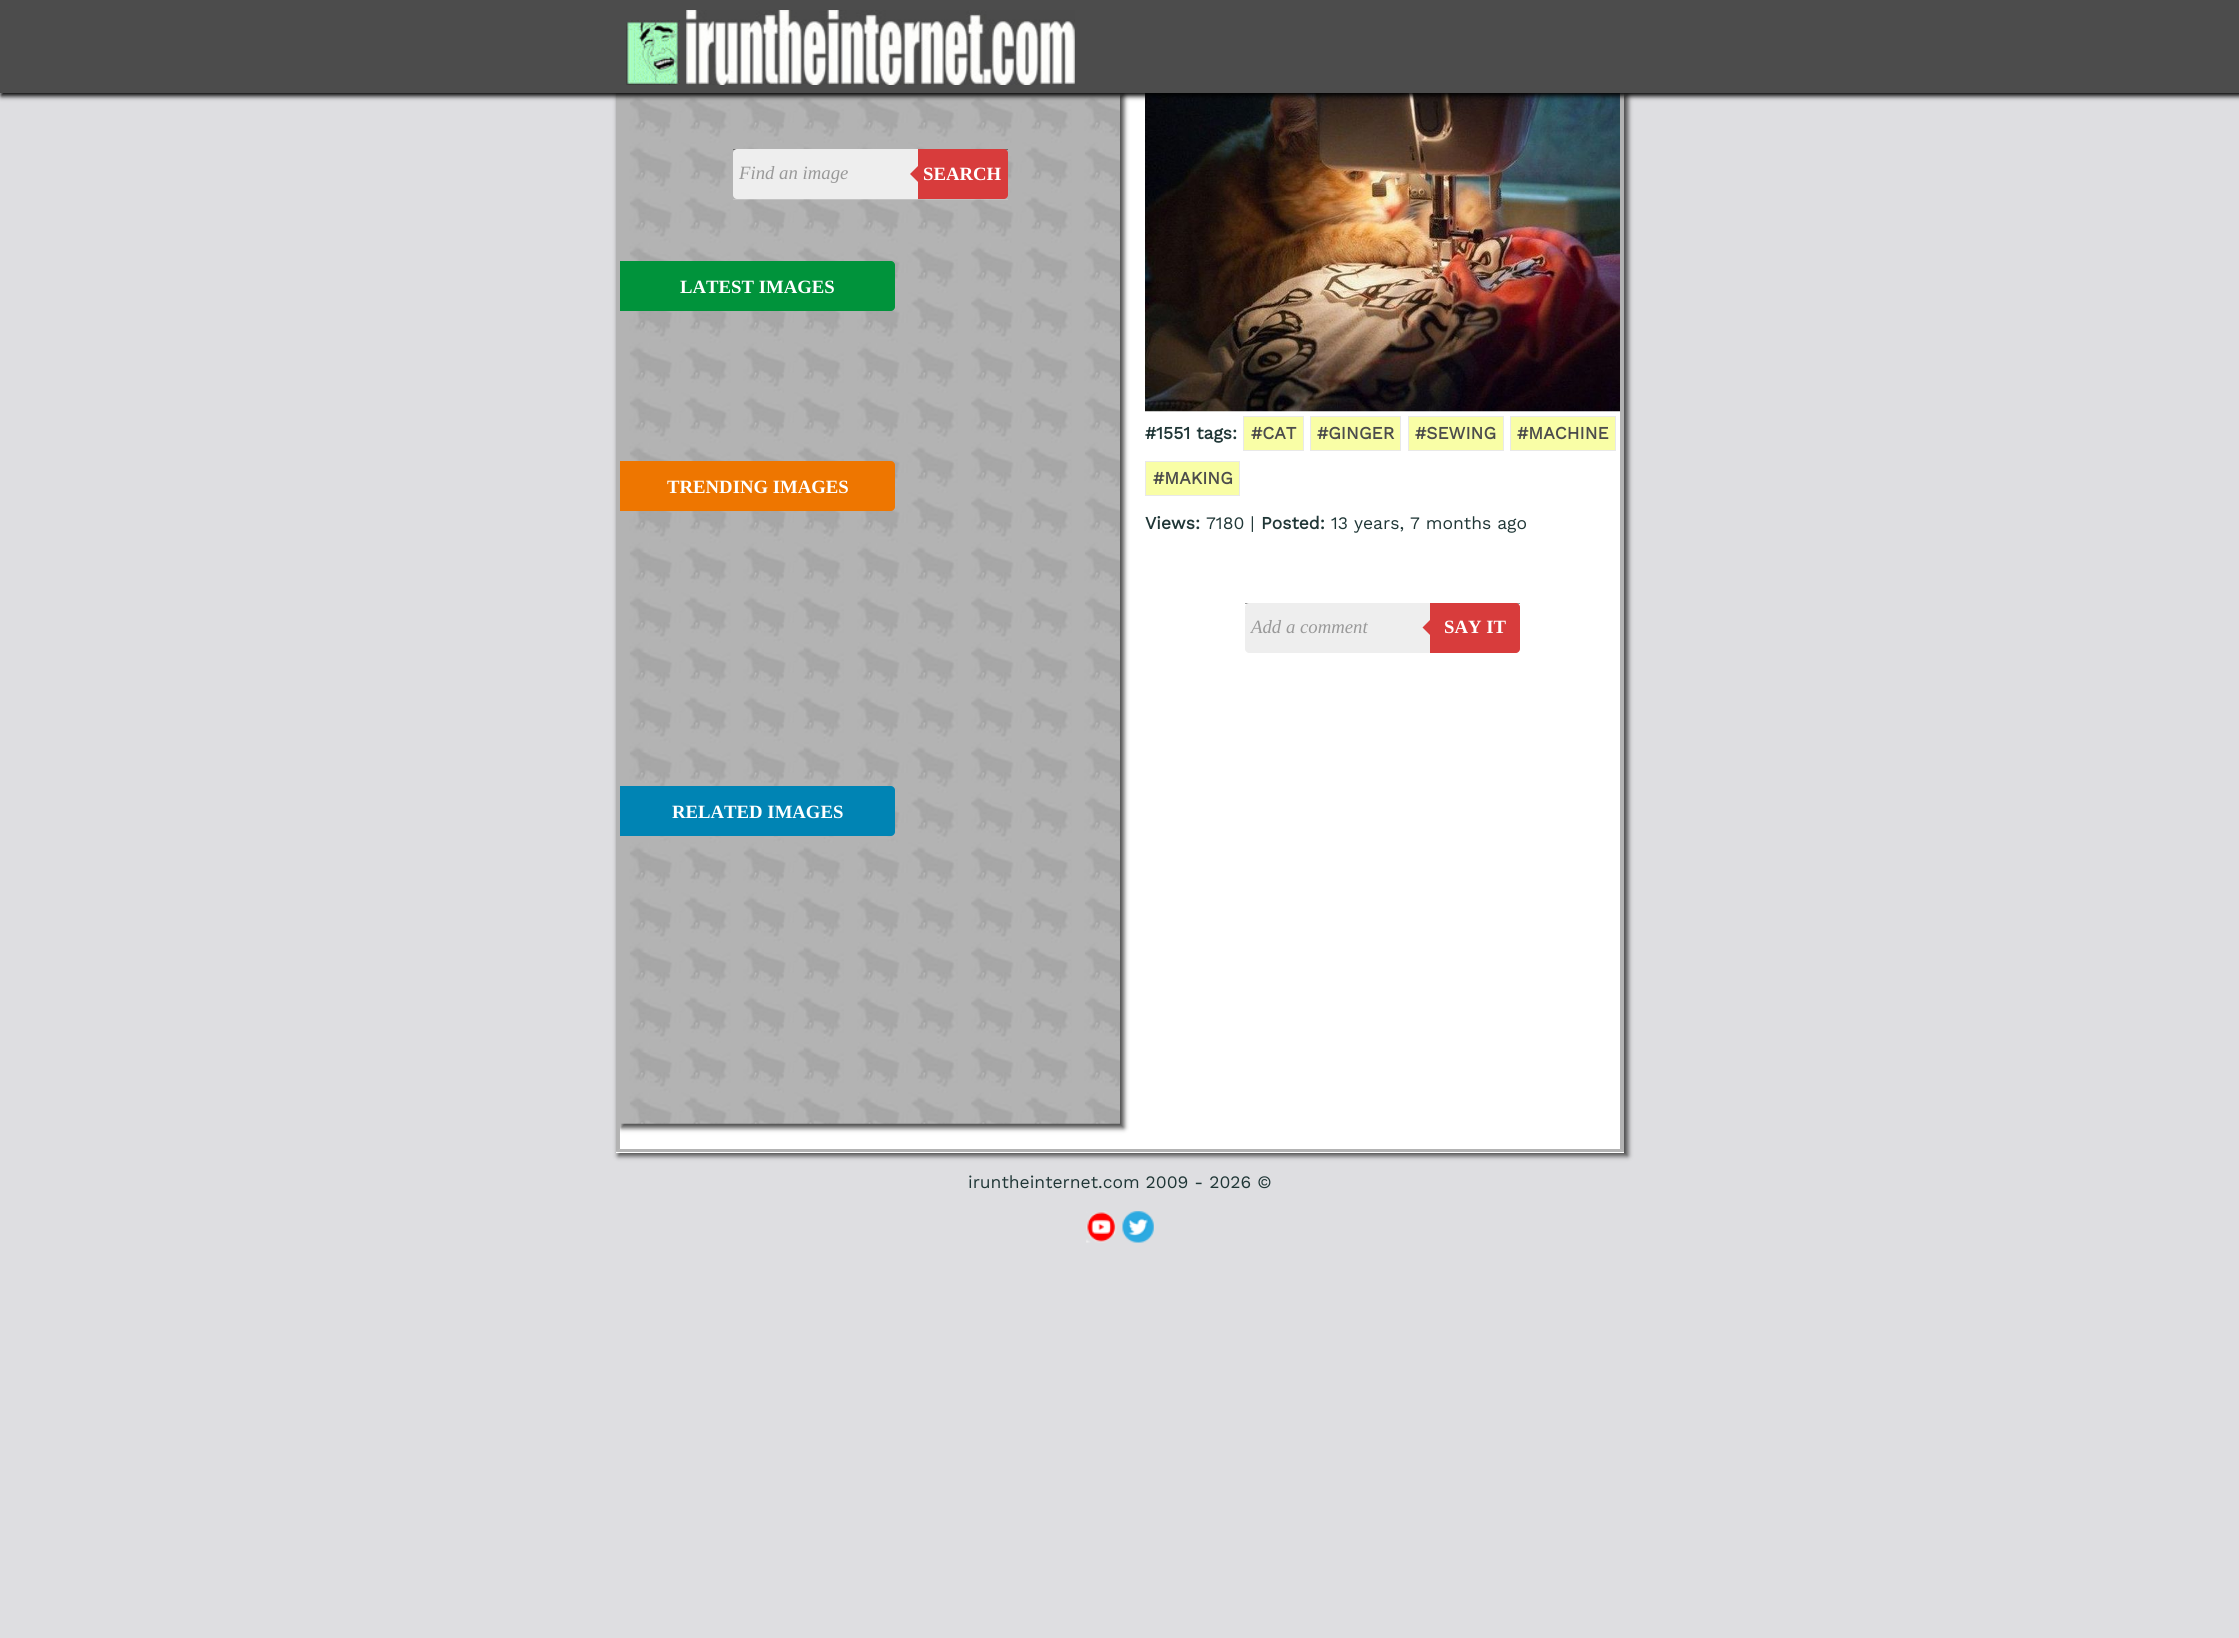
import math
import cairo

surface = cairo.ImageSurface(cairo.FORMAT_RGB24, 2239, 1638)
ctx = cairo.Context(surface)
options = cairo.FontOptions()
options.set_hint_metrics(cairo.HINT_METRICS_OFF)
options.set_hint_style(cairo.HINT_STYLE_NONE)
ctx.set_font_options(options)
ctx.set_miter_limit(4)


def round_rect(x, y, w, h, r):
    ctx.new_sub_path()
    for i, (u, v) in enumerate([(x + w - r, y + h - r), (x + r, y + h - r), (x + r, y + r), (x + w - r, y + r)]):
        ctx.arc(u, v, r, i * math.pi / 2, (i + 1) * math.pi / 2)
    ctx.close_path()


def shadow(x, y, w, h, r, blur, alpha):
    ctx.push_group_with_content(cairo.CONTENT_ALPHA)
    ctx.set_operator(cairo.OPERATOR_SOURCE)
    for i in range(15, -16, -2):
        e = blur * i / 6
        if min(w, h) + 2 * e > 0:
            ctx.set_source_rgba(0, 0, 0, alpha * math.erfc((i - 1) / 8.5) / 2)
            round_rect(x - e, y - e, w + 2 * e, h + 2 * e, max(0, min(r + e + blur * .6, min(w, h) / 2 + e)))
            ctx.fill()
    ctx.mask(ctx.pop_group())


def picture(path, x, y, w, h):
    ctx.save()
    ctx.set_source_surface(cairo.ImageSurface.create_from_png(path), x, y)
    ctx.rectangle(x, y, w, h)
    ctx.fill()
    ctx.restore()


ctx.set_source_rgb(0.871, 0.871, 0.882)
ctx.paint()
ctx.set_source_rgb(0.298, 0.298, 0.298)
shadow(618, 94, 1010, 1062, 0, 2.5, 1)
ctx.set_source_rgb(1, 1, 1)
ctx.rectangle(616, 93, 1008, 1060)
ctx.fill()
ctx.set_source_rgba(0, 0, 0, 0.3)
ctx.new_path()
ctx.move_to(1624, 92)
ctx.line_to(1624, 1152)
ctx.line_to(1620, 1149)
ctx.line_to(1620, 92)
ctx.close_path()
ctx.fill()
ctx.new_path()
ctx.move_to(1624, 1152)
ctx.line_to(616, 1152)
ctx.line_to(620, 1149)
ctx.line_to(1620, 1149)
ctx.close_path()
ctx.fill()
ctx.new_path()
ctx.move_to(616, 1152)
ctx.line_to(616, 92)
ctx.line_to(620, 92)
ctx.line_to(620, 1149)
ctx.close_path()
ctx.fill()
ctx.save()
ctx.rectangle(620, 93, 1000, 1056)
ctx.clip()
ctx.set_source_rgb(0.298, 0.298, 0.298)
shadow(621, 94, 503, 1034, 0, 2.5, 1)
ctx.restore()
picture("img3.png", 620, 93, 500, 1031)
picture("img4.png", 1145, 93, 475, 319)
ctx.set_source_rgb(0, 0, 0)
shadow(1, 1, 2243, 95, 0, 2.5, 1)
ctx.set_source_rgb(0.298, 0.298, 0.298)
ctx.rectangle(0, 0, 2239, 93)
ctx.fill()
picture("img1.png", 626, 20, 54, 65)
picture("img2.png", 686, 10, 389, 75)
ctx.set_source_rgba(1, 1, 1, 0.2)
ctx.new_path()
ctx.move_to(733, 199)
ctx.line_to(733, 200)
ctx.line_to(1008, 200)
ctx.line_to(1008, 150)
ctx.line_to(1008, 199)
ctx.close_path()
ctx.fill()
ctx.set_source_rgba(0, 0, 0, 0.4)
ctx.rectangle(733, 149, 275, 1)
ctx.fill()
ctx.set_source_rgb(0.933, 0.933, 0.933)
ctx.new_path()
ctx.move_to(737, 149)
ctx.line_to(918, 149)
ctx.line_to(918, 199)
ctx.line_to(737, 199)
ctx.curve_to(735, 199, 733, 197, 733, 195)
ctx.line_to(733, 153)
ctx.curve_to(733, 151, 735, 149, 737, 149)
ctx.close_path()
ctx.fill()
ctx.select_font_face("Liberation Serif", cairo.FONT_SLANT_ITALIC)
ctx.set_font_size(18.75)
ctx.set_source_rgb(0.6, 0.6, 0.6)
ctx.move_to(739, 179)
ctx.show_text("Find an image")
ctx.set_source_rgb(0.847, 0.235, 0.235)
ctx.new_path()
ctx.move_to(918, 149)
ctx.line_to(1004, 149)
ctx.curve_to(1006, 149, 1008, 151, 1008, 153)
ctx.line_to(1008, 195)
ctx.curve_to(1008, 197, 1006, 199, 1004, 199)
ctx.line_to(918, 199)
ctx.close_path()
ctx.fill()
ctx.new_path()
ctx.move_to(920, 164)
ctx.line_to(920, 184)
ctx.line_to(910, 174)
ctx.close_path()
ctx.fill()
ctx.select_font_face("Liberation Serif", cairo.FONT_SLANT_NORMAL, cairo.FONT_WEIGHT_BOLD)
ctx.set_source_rgb(1, 1, 1)
ctx.move_to(923, 180)
ctx.show_text("SEARCH")
ctx.set_source_rgb(0, 0.576, 0.231)
ctx.new_path()
ctx.move_to(620, 261)
ctx.line_to(891, 261)
ctx.curve_to(893, 261, 895, 263, 895, 265)
ctx.line_to(895, 307)
ctx.curve_to(895, 309, 893, 311, 891, 311)
ctx.line_to(620, 311)
ctx.close_path()
ctx.fill()
ctx.set_source_rgb(1, 1, 1)
ctx.move_to(680, 293)
ctx.show_text("LATEST IMAGES")
ctx.set_source_rgb(0.933, 0.463, 0)
ctx.new_path()
ctx.move_to(620, 461)
ctx.line_to(891, 461)
ctx.curve_to(893, 461, 895, 463, 895, 465)
ctx.line_to(895, 507)
ctx.curve_to(895, 509, 893, 511, 891, 511)
ctx.line_to(620, 511)
ctx.close_path()
ctx.fill()
ctx.set_source_rgb(1, 1, 1)
ctx.move_to(667, 493)
ctx.show_text("TRENDING IMAGES")
ctx.set_source_rgb(0, 0.518, 0.706)
ctx.new_path()
ctx.move_to(620, 786)
ctx.line_to(891, 786)
ctx.curve_to(893, 786, 895, 788, 895, 790)
ctx.line_to(895, 832)
ctx.curve_to(895, 834, 893, 836, 891, 836)
ctx.line_to(620, 836)
ctx.close_path()
ctx.fill()
ctx.set_source_rgb(1, 1, 1)
ctx.move_to(672, 818)
ctx.show_text("RELATED IMAGES")
ctx.select_font_face("Work Sans", cairo.FONT_SLANT_NORMAL, cairo.FONT_WEIGHT_BOLD)
ctx.set_font_size(17.5)
ctx.set_source_rgb(0.125, 0.216, 0.216)
ctx.move_to(1145, 439)
ctx.show_text("#1551 tags:")
ctx.set_source_rgb(0.976, 0.996, 0.651)
ctx.rectangle(1243.5, 416.5, 60, 34)
ctx.fill_preserve()
ctx.set_source_rgb(0.914, 0.914, 0.914)
ctx.set_line_width(1)
ctx.stroke()
ctx.set_source_rgb(0.298, 0.298, 0.298)
ctx.move_to(1251, 439)
ctx.show_text("#CAT")
ctx.set_source_rgb(0.976, 0.996, 0.651)
ctx.rectangle(1310.5, 416.5, 90, 34)
ctx.fill_preserve()
ctx.set_source_rgb(0.914, 0.914, 0.914)
ctx.stroke()
ctx.set_source_rgb(0.298, 0.298, 0.298)
ctx.move_to(1317, 439)
ctx.show_text("#GINGER")
ctx.set_source_rgb(0.976, 0.996, 0.651)
ctx.rectangle(1408.5, 416.5, 95, 34)
ctx.fill_preserve()
ctx.set_source_rgb(0.914, 0.914, 0.914)
ctx.stroke()
ctx.set_source_rgb(0.298, 0.298, 0.298)
ctx.move_to(1415, 439)
ctx.show_text("#SEWING")
ctx.set_source_rgb(0.976, 0.996, 0.651)
ctx.rectangle(1510.5, 416.5, 105, 34)
ctx.fill_preserve()
ctx.set_source_rgb(0.914, 0.914, 0.914)
ctx.stroke()
ctx.set_source_rgb(0.298, 0.298, 0.298)
ctx.move_to(1517, 439)
ctx.show_text("#MACHINE")
ctx.set_source_rgb(0.976, 0.996, 0.651)
ctx.rectangle(1145.5, 461.5, 94, 34)
ctx.fill_preserve()
ctx.set_source_rgb(0.914, 0.914, 0.914)
ctx.stroke()
ctx.set_source_rgb(0.298, 0.298, 0.298)
ctx.move_to(1153, 484)
ctx.show_text("#MAKING")
ctx.set_source_rgb(0.125, 0.216, 0.216)
ctx.move_to(1145, 529)
ctx.show_text("Views:")
ctx.select_font_face("Work Sans")
ctx.move_to(1206, 529)
ctx.show_text("7180 |")
ctx.select_font_face("Work Sans", cairo.FONT_SLANT_NORMAL, cairo.FONT_WEIGHT_BOLD)
ctx.move_to(1261, 529)
ctx.show_text("Posted:")
ctx.select_font_face("Work Sans")
ctx.move_to(1331, 529)
ctx.show_text("13 years, 7 months ago")
ctx.set_source_rgb(0.6, 0.6, 0.6)
ctx.rectangle(1245, 603, 275, 1)
ctx.fill()
ctx.set_source_rgb(0.933, 0.933, 0.933)
ctx.new_path()
ctx.move_to(1249, 603)
ctx.line_to(1430, 603)
ctx.line_to(1430, 653)
ctx.line_to(1249, 653)
ctx.curve_to(1247, 653, 1245, 651, 1245, 649)
ctx.line_to(1245, 607)
ctx.curve_to(1245, 605, 1247, 603, 1249, 603)
ctx.close_path()
ctx.fill()
ctx.select_font_face("Liberation Serif", cairo.FONT_SLANT_ITALIC)
ctx.set_font_size(18.75)
ctx.set_source_rgb(0.6, 0.6, 0.6)
ctx.move_to(1251, 633)
ctx.show_text("Add a comment")
ctx.set_source_rgb(0.847, 0.235, 0.235)
ctx.new_path()
ctx.move_to(1430, 603)
ctx.line_to(1516, 603)
ctx.curve_to(1518, 603, 1520, 605, 1520, 607)
ctx.line_to(1520, 649)
ctx.curve_to(1520, 651, 1518, 653, 1516, 653)
ctx.line_to(1430, 653)
ctx.close_path()
ctx.fill()
ctx.new_path()
ctx.move_to(1432.5, 617.5)
ctx.line_to(1432.5, 637.5)
ctx.line_to(1422.5, 627.5)
ctx.close_path()
ctx.fill()
ctx.select_font_face("Liberation Serif", cairo.FONT_SLANT_NORMAL, cairo.FONT_WEIGHT_BOLD)
ctx.set_source_rgb(1, 1, 1)
ctx.move_to(1444, 633)
ctx.show_text("SAY IT")
ctx.select_font_face("Work Sans")
ctx.set_font_size(17.5)
ctx.set_source_rgb(0.125, 0.216, 0.216)
ctx.move_to(968, 1188)
ctx.show_text("iruntheinternet.com 2009 - 2026 ©")
picture("img5.png", 1086, 1211, 31, 32)
picture("img6.png", 1122, 1211, 32, 32)
surface.write_to_png("page.png")
